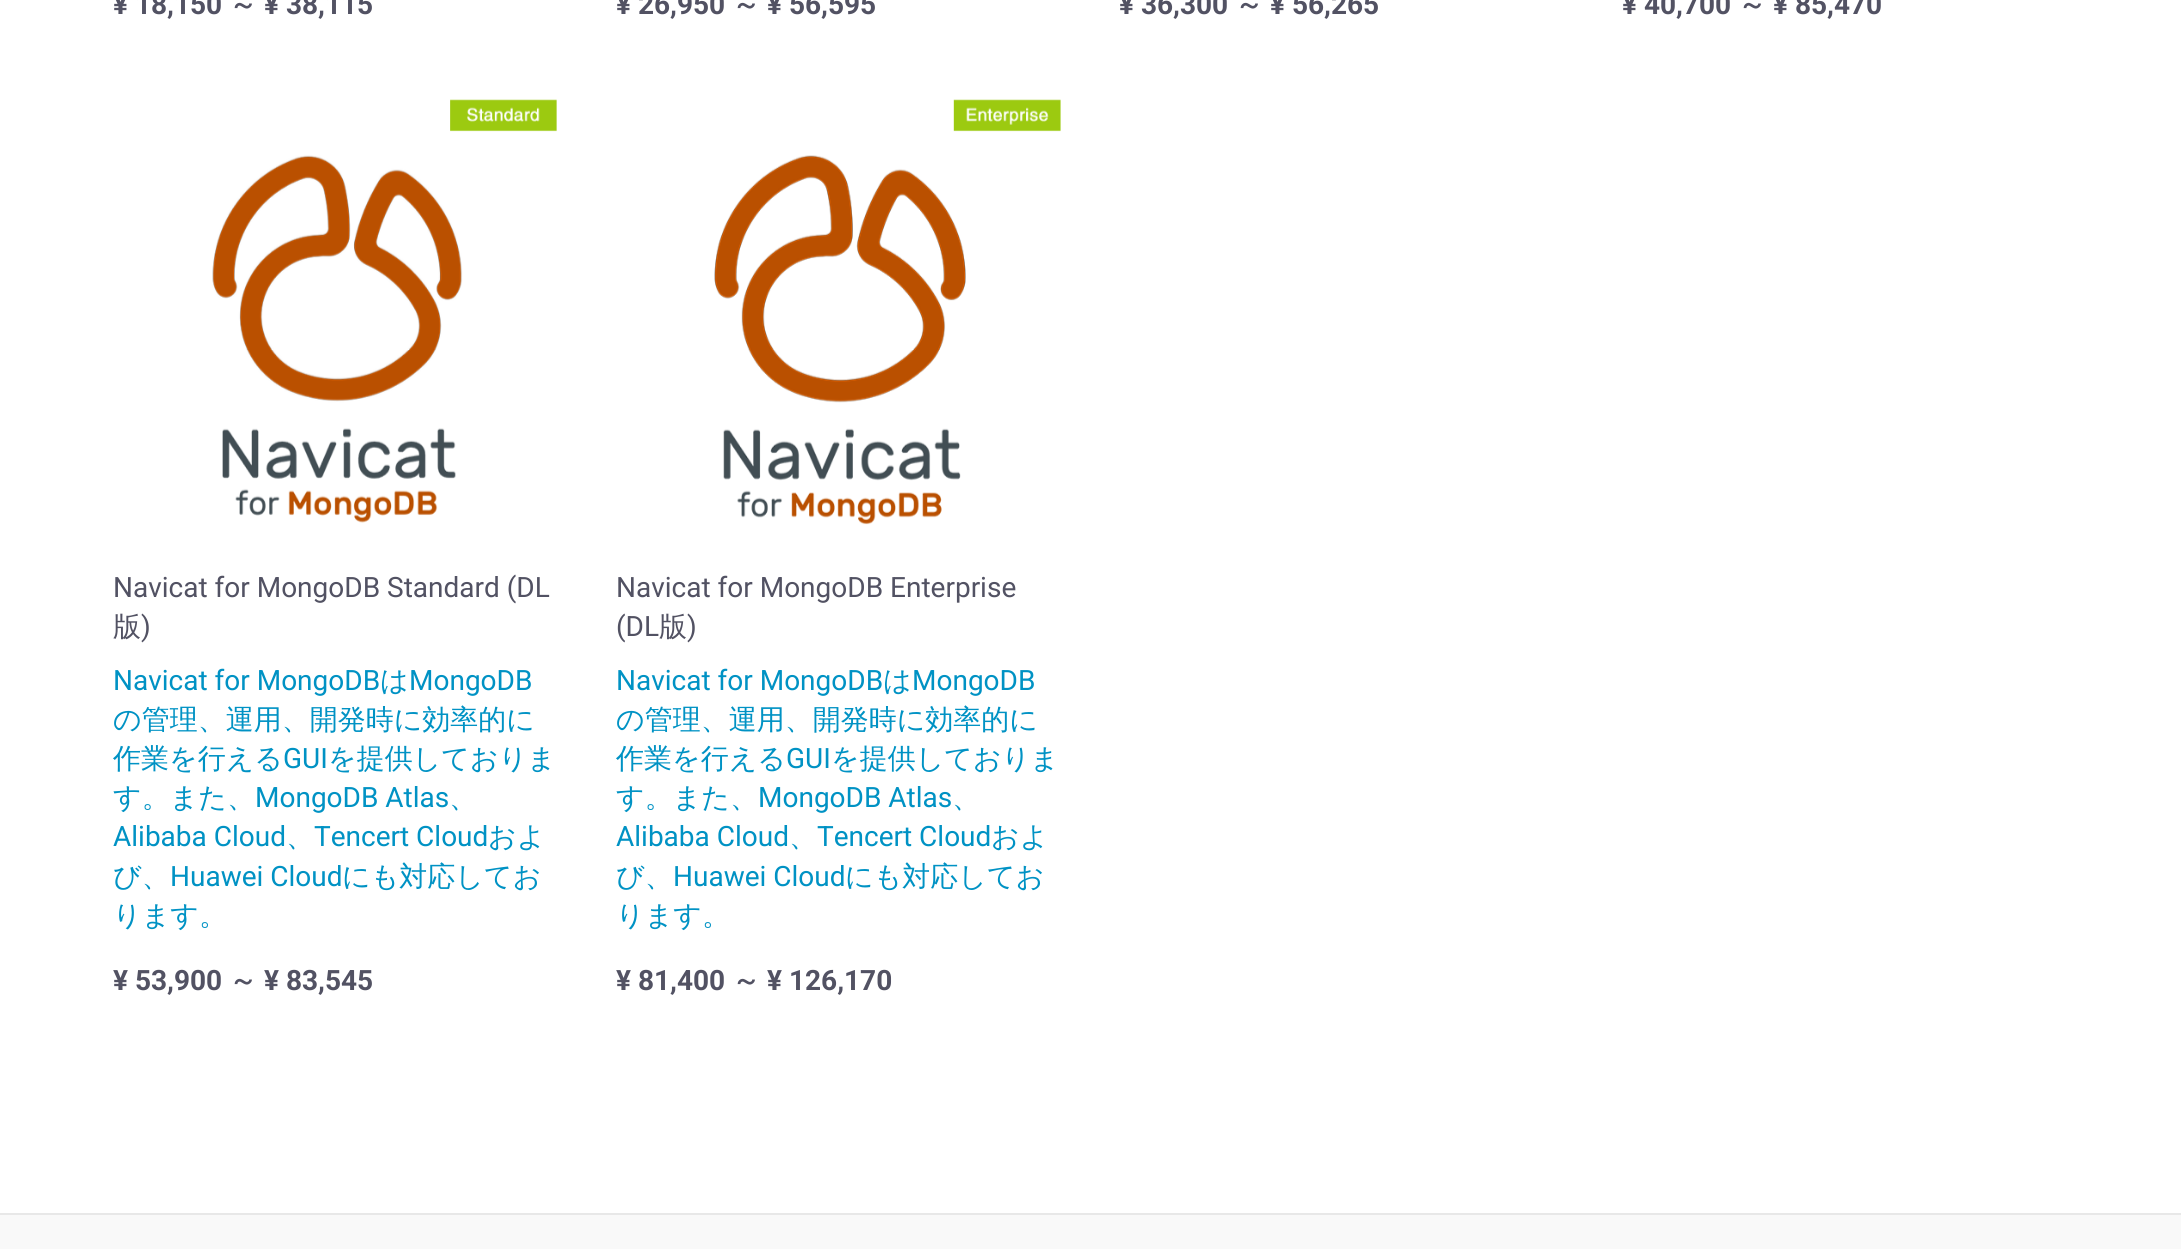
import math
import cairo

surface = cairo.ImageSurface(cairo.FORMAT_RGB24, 2181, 1249)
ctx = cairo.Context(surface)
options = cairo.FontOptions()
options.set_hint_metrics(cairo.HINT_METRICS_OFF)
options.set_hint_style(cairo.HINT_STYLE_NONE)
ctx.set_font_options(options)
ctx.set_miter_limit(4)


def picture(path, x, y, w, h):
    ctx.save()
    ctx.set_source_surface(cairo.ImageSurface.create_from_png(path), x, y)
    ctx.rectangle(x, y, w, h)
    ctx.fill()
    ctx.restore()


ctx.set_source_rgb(1, 1, 1)
ctx.paint()
ctx.select_font_face("Roboto", cairo.FONT_SLANT_NORMAL, cairo.FONT_WEIGHT_BOLD)
ctx.set_font_size(28)
ctx.set_source_rgb(0.322, 0.322, 0.388)
ctx.move_to(113, 14)
ctx.show_text("¥ 18,150")
ctx.select_font_face("WenQuanYi Zen Hei", cairo.FONT_SLANT_NORMAL, cairo.FONT_WEIGHT_BOLD)
ctx.move_to(229, 14)
ctx.show_text("～")
ctx.select_font_face("Roboto", cairo.FONT_SLANT_NORMAL, cairo.FONT_WEIGHT_BOLD)
ctx.move_to(264, 14)
ctx.show_text("¥ 38,115")
ctx.move_to(616, 14)
ctx.show_text("¥ 26,950")
ctx.select_font_face("WenQuanYi Zen Hei", cairo.FONT_SLANT_NORMAL, cairo.FONT_WEIGHT_BOLD)
ctx.move_to(732, 14)
ctx.show_text("～")
ctx.select_font_face("Roboto", cairo.FONT_SLANT_NORMAL, cairo.FONT_WEIGHT_BOLD)
ctx.move_to(767, 14)
ctx.show_text("¥ 56,595")
ctx.move_to(1119, 14)
ctx.show_text("¥ 36,300")
ctx.select_font_face("WenQuanYi Zen Hei", cairo.FONT_SLANT_NORMAL, cairo.FONT_WEIGHT_BOLD)
ctx.move_to(1235, 14)
ctx.show_text("～")
ctx.select_font_face("Roboto", cairo.FONT_SLANT_NORMAL, cairo.FONT_WEIGHT_BOLD)
ctx.move_to(1270, 14)
ctx.show_text("¥ 56,265")
ctx.move_to(1622, 14)
ctx.show_text("¥ 40,700")
ctx.select_font_face("WenQuanYi Zen Hei", cairo.FONT_SLANT_NORMAL, cairo.FONT_WEIGHT_BOLD)
ctx.move_to(1738, 14)
ctx.show_text("～")
ctx.select_font_face("Roboto", cairo.FONT_SLANT_NORMAL, cairo.FONT_WEIGHT_BOLD)
ctx.move_to(1773, 14)
ctx.show_text("¥ 85,470")
picture("img1.png", 212, 99, 345, 424)
ctx.select_font_face("Roboto")
ctx.move_to(113, 597)
ctx.show_text("Navicat for MongoDB Standard (DL")
ctx.select_font_face("WenQuanYi Zen Hei Medium")
ctx.move_to(113, 636)
ctx.show_text("版")
ctx.select_font_face("Roboto")
ctx.move_to(141, 636)
ctx.show_text(")")
ctx.set_source_rgb(0, 0.573, 0.769)
ctx.move_to(113, 690)
ctx.show_text("Navicat for MongoDB")
ctx.select_font_face("WenQuanYi Zen Hei Medium")
ctx.move_to(380, 690)
ctx.show_text("は")
ctx.select_font_face("Roboto")
ctx.move_to(409, 690)
ctx.show_text("MongoDB")
ctx.select_font_face("WenQuanYi Zen Hei Medium")
ctx.move_to(113, 729)
ctx.show_text("の管理、運用、開発時に効率的に")
ctx.move_to(113, 768)
ctx.show_text("作業を行える")
ctx.select_font_face("Roboto")
ctx.move_to(283, 768)
ctx.show_text("GUI")
ctx.select_font_face("WenQuanYi Zen Hei Medium")
ctx.move_to(328, 768)
ctx.show_text("を提供しておりま")
ctx.move_to(113, 807)
ctx.show_text("す。また、")
ctx.select_font_face("Roboto")
ctx.move_to(255, 807)
ctx.show_text("MongoDB Atlas")
ctx.select_font_face("WenQuanYi Zen Hei Medium")
ctx.move_to(449, 807)
ctx.show_text("、")
ctx.select_font_face("Roboto")
ctx.move_to(113, 846)
ctx.show_text("Alibaba Cloud")
ctx.select_font_face("WenQuanYi Zen Hei Medium")
ctx.move_to(286, 846)
ctx.show_text("、")
ctx.select_font_face("Roboto")
ctx.move_to(314, 846)
ctx.show_text("Tencert Cloud")
ctx.select_font_face("WenQuanYi Zen Hei Medium")
ctx.move_to(488, 846)
ctx.show_text("およ")
ctx.move_to(113, 886)
ctx.show_text("び、")
ctx.select_font_face("Roboto")
ctx.move_to(170, 886)
ctx.show_text("Huawei Cloud")
ctx.select_font_face("WenQuanYi Zen Hei Medium")
ctx.move_to(342, 886)
ctx.show_text("にも対応してお")
ctx.move_to(113, 925)
ctx.show_text("ります。")
ctx.select_font_face("Roboto", cairo.FONT_SLANT_NORMAL, cairo.FONT_WEIGHT_BOLD)
ctx.set_source_rgb(0.322, 0.322, 0.388)
ctx.move_to(113, 990)
ctx.show_text("¥ 53,900")
ctx.select_font_face("WenQuanYi Zen Hei", cairo.FONT_SLANT_NORMAL, cairo.FONT_WEIGHT_BOLD)
ctx.move_to(229, 990)
ctx.show_text("～")
ctx.select_font_face("Roboto", cairo.FONT_SLANT_NORMAL, cairo.FONT_WEIGHT_BOLD)
ctx.move_to(264, 990)
ctx.show_text("¥ 83,545")
picture("img2.png", 714, 99, 347, 426)
ctx.select_font_face("Roboto")
ctx.move_to(616, 597)
ctx.show_text("Navicat for MongoDB Enterprise")
ctx.move_to(616, 636)
ctx.show_text("(DL")
ctx.select_font_face("WenQuanYi Zen Hei Medium")
ctx.move_to(659, 636)
ctx.show_text("版")
ctx.select_font_face("Roboto")
ctx.move_to(687, 636)
ctx.show_text(")")
ctx.set_source_rgb(0, 0.573, 0.769)
ctx.move_to(616, 690)
ctx.show_text("Navicat for MongoDB")
ctx.select_font_face("WenQuanYi Zen Hei Medium")
ctx.move_to(883, 690)
ctx.show_text("は")
ctx.select_font_face("Roboto")
ctx.move_to(912, 690)
ctx.show_text("MongoDB")
ctx.select_font_face("WenQuanYi Zen Hei Medium")
ctx.move_to(616, 729)
ctx.show_text("の管理、運用、開発時に効率的に")
ctx.move_to(616, 768)
ctx.show_text("作業を行える")
ctx.select_font_face("Roboto")
ctx.move_to(786, 768)
ctx.show_text("GUI")
ctx.select_font_face("WenQuanYi Zen Hei Medium")
ctx.move_to(831, 768)
ctx.show_text("を提供しておりま")
ctx.move_to(616, 807)
ctx.show_text("す。また、")
ctx.select_font_face("Roboto")
ctx.move_to(758, 807)
ctx.show_text("MongoDB Atlas")
ctx.select_font_face("WenQuanYi Zen Hei Medium")
ctx.move_to(952, 807)
ctx.show_text("、")
ctx.select_font_face("Roboto")
ctx.move_to(616, 846)
ctx.show_text("Alibaba Cloud")
ctx.select_font_face("WenQuanYi Zen Hei Medium")
ctx.move_to(789, 846)
ctx.show_text("、")
ctx.select_font_face("Roboto")
ctx.move_to(817, 846)
ctx.show_text("Tencert Cloud")
ctx.select_font_face("WenQuanYi Zen Hei Medium")
ctx.move_to(991, 846)
ctx.show_text("およ")
ctx.move_to(616, 886)
ctx.show_text("び、")
ctx.select_font_face("Roboto")
ctx.move_to(673, 886)
ctx.show_text("Huawei Cloud")
ctx.select_font_face("WenQuanYi Zen Hei Medium")
ctx.move_to(845, 886)
ctx.show_text("にも対応してお")
ctx.move_to(616, 925)
ctx.show_text("ります。")
ctx.select_font_face("Roboto", cairo.FONT_SLANT_NORMAL, cairo.FONT_WEIGHT_BOLD)
ctx.set_source_rgb(0.322, 0.322, 0.388)
ctx.move_to(616, 990)
ctx.show_text("¥ 81,400")
ctx.select_font_face("WenQuanYi Zen Hei", cairo.FONT_SLANT_NORMAL, cairo.FONT_WEIGHT_BOLD)
ctx.move_to(732, 990)
ctx.show_text("～")
ctx.select_font_face("Roboto", cairo.FONT_SLANT_NORMAL, cairo.FONT_WEIGHT_BOLD)
ctx.move_to(767, 990)
ctx.show_text("¥ 126,170")
ctx.set_source_rgb(0.973, 0.973, 0.973)
ctx.rectangle(0, 1215, 2181, 34)
ctx.fill()
ctx.set_source_rgb(0.91, 0.91, 0.91)
ctx.rectangle(0, 1213, 2181, 2)
ctx.fill()
surface.write_to_png("page.png")
